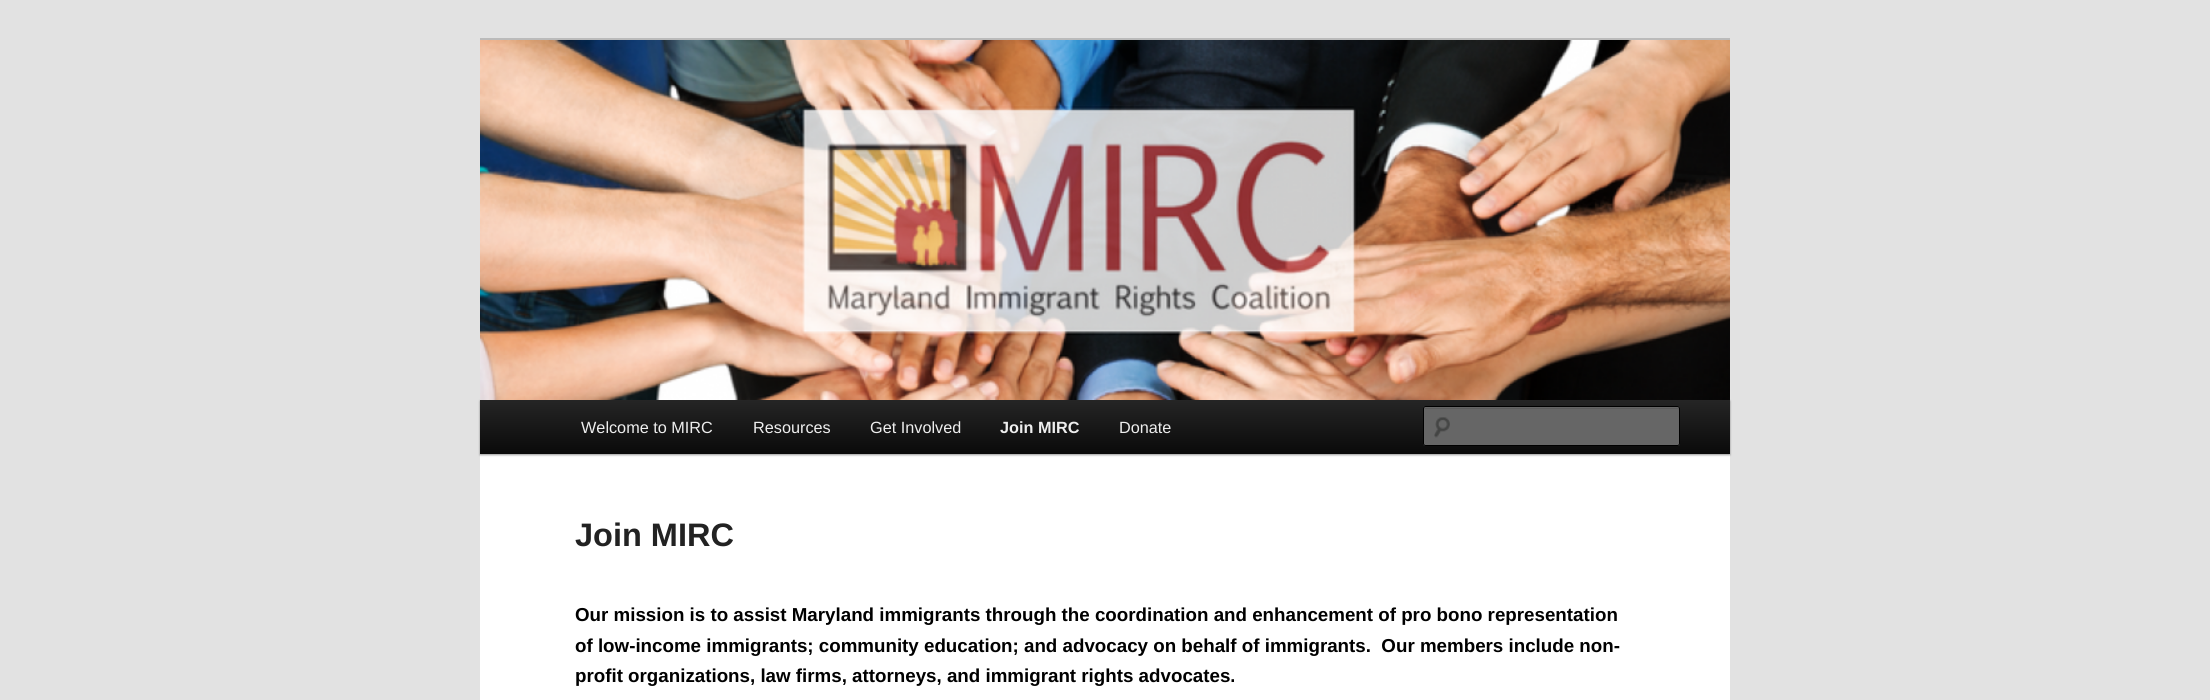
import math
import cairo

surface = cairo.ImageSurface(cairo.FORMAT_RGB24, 2210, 700)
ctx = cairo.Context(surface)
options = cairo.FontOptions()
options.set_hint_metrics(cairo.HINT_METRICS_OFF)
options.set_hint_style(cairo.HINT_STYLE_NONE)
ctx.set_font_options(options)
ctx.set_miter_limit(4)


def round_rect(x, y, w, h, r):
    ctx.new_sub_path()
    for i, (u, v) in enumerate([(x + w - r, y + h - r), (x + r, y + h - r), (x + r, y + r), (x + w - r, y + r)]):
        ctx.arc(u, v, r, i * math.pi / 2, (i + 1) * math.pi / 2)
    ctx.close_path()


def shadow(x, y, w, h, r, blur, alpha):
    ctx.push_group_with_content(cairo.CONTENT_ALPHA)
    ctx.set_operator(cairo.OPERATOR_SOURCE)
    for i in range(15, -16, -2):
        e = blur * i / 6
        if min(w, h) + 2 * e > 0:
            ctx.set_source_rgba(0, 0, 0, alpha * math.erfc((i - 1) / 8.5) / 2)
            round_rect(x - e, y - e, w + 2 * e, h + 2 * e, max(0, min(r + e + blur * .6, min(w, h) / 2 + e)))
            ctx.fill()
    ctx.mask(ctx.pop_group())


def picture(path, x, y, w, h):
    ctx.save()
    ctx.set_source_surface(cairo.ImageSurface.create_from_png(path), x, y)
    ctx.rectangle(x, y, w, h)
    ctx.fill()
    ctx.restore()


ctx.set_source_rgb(0.886, 0.886, 0.886)
ctx.paint()
ctx.set_source_rgb(1, 1, 1)
ctx.rectangle(480, 41, 1250, 659)
ctx.fill()
ctx.set_source_rgb(0.733, 0.733, 0.733)
ctx.rectangle(480, 38, 1250, 3)
ctx.fill()
ctx.set_source_rgb(0, 0, 0)
shadow(480, 401, 1250, 54, 0, 1, 0.4)
picture("img1.png", 480, 40, 1250, 360)
gradient = cairo.LinearGradient(1105, 400, 1105, 454)
gradient.add_color_stop_rgba(0, 0.145, 0.145, 0.145, 1)
gradient.add_color_stop_rgba(1, 0.039, 0.039, 0.039, 1)
ctx.set_source(gradient)
ctx.rectangle(480, 400, 1250, 54)
ctx.fill()
ctx.select_font_face("Liberation Sans")
ctx.set_font_size(16.25)
ctx.set_source_rgb(0.933, 0.933, 0.933)
ctx.move_to(581, 433)
ctx.show_text("Welcome to MIRC")
ctx.move_to(753, 433)
ctx.show_text("Resources")
ctx.move_to(870, 433)
ctx.show_text("Get Involved")
ctx.select_font_face("Liberation Sans", cairo.FONT_SLANT_NORMAL, cairo.FONT_WEIGHT_BOLD)
ctx.move_to(1000, 433)
ctx.show_text("Join MIRC")
ctx.select_font_face("Liberation Sans")
ctx.move_to(1119, 433)
ctx.show_text("Donate")
ctx.set_source_rgb(0.4, 0.4, 0.4)
round_rect(1423, 406, 257, 40, 2.5)
ctx.fill()
picture("img2.png", 1434, 417, 16, 21)
ctx.set_source_rgb(0.361, 0.361, 0.361)
ctx.new_path()
ctx.move_to(1425, 409)
ctx.line_to(1678, 409)
ctx.line_to(1679, 410)
ctx.line_to(1679, 408)
ctx.line_to(1425, 408)
ctx.curve_to(1424, 408, 1424, 409, 1424, 410)
ctx.curve_to(1424, 409, 1424, 409, 1425, 409)
ctx.close_path()
ctx.fill()
round_rect(1423.5, 406.5, 256, 39, 2)
ctx.set_source_rgb(0, 0, 0)
ctx.set_line_width(1)
ctx.stroke()
ctx.select_font_face("Liberation Sans", cairo.FONT_SLANT_NORMAL, cairo.FONT_WEIGHT_BOLD)
ctx.set_font_size(32.5)
ctx.set_source_rgb(0.133, 0.133, 0.133)
ctx.move_to(575, 546)
ctx.show_text("Join MIRC")
ctx.set_font_size(18.75)
ctx.set_source_rgb(0, 0, 0)
ctx.move_to(575, 621)
ctx.show_text("Our mission is to assist Maryland immigrants through the coordination and enhancement of pro bono representation")
ctx.move_to(575, 652)
ctx.show_text("of low-income immigrants; community education; and advocacy on behalf of immigrants.  Our members include non-")
ctx.move_to(575, 682)
ctx.show_text("profit organizations, law firms, attorneys, and immigrant rights advocates.")
surface.write_to_png("page.png")
